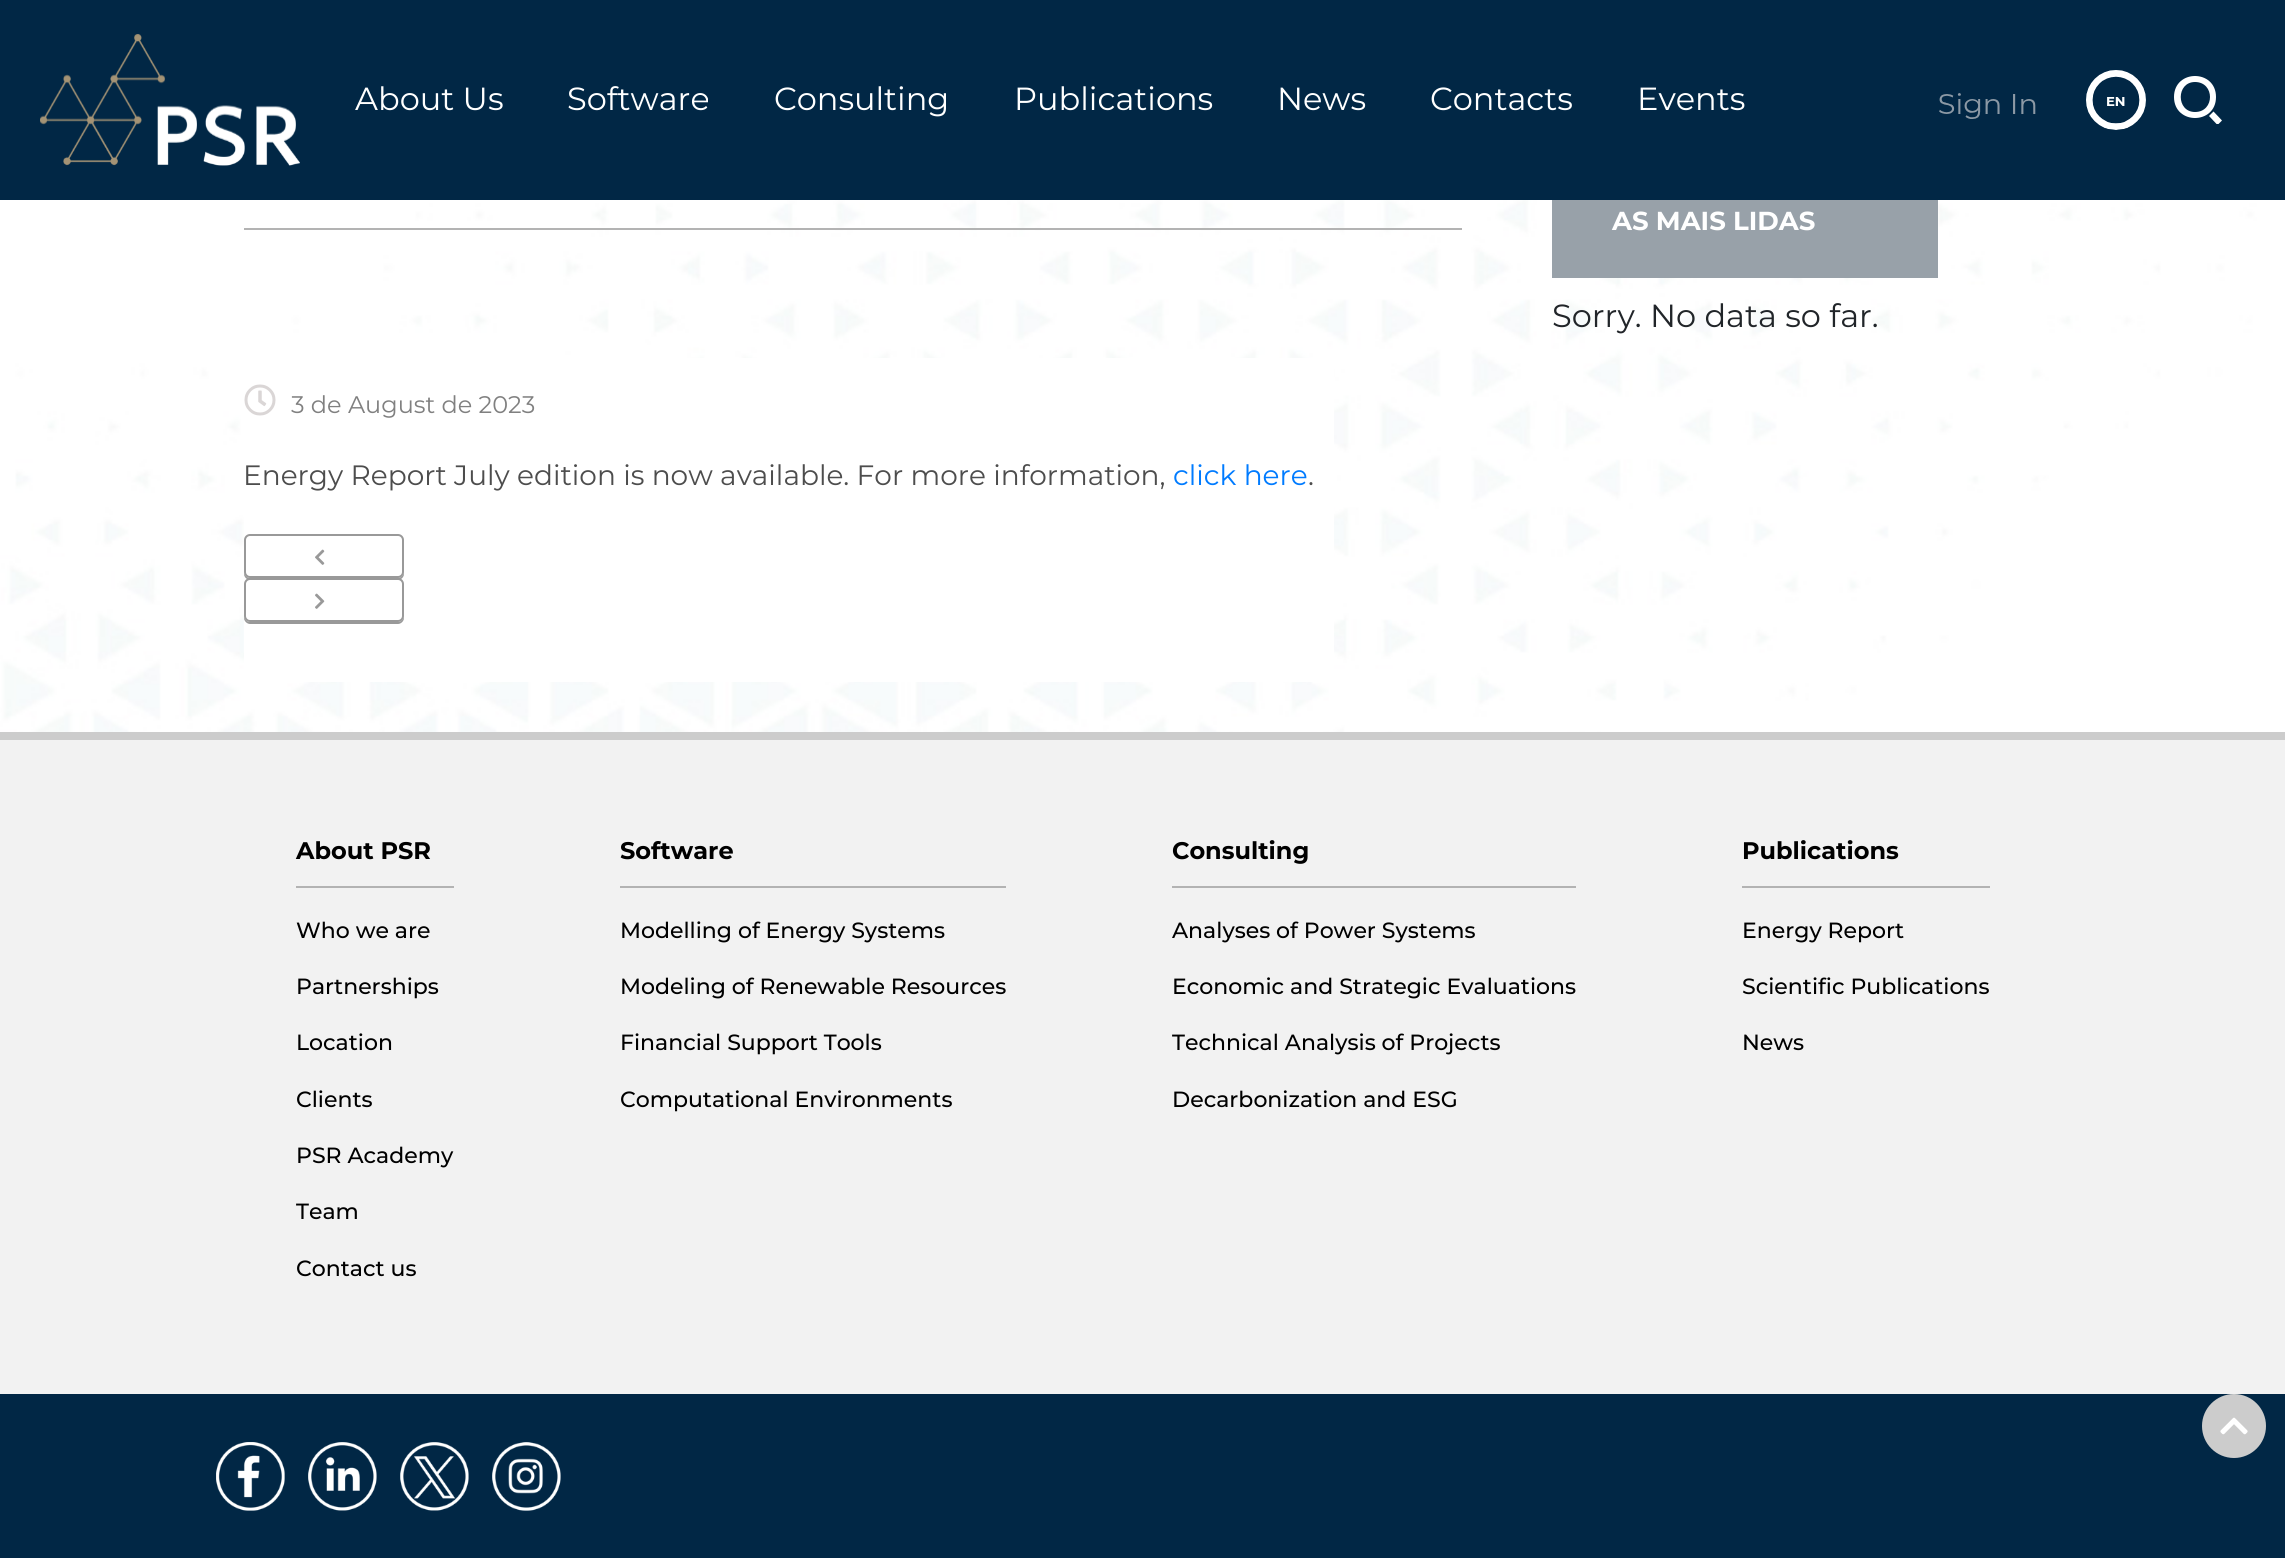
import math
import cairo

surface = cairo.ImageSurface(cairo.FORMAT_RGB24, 2285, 1558)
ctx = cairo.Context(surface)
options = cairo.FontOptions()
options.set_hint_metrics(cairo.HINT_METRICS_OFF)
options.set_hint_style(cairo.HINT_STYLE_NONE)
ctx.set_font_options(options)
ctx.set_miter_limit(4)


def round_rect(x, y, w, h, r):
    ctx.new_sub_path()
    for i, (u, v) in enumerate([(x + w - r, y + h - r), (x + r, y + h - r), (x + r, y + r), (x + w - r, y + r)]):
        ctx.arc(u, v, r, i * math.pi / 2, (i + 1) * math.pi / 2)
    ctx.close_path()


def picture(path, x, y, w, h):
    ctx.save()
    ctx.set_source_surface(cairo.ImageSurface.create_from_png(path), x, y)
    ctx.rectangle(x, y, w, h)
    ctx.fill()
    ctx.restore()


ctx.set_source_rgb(1, 1, 1)
ctx.paint()
picture("img1.png", 0, 200, 2271, 532)
ctx.set_source_rgb(0.004, 0.153, 0.271)
ctx.rectangle(0, 0, 2285, 200)
ctx.fill()
picture("img2.png", 40, 34, 260, 132)
ctx.select_font_face("Montserrat")
ctx.set_font_size(32)
ctx.set_source_rgb(1, 1, 1)
ctx.move_to(355, 110)
ctx.show_text("About Us")
ctx.move_to(567, 110)
ctx.show_text("Software")
ctx.move_to(774, 110)
ctx.show_text("Consulting")
ctx.move_to(1014, 110)
ctx.show_text("Publications")
ctx.move_to(1277, 110)
ctx.show_text("News")
ctx.move_to(1430, 110)
ctx.show_text("Contacts")
ctx.move_to(1637, 110)
ctx.show_text("Events")
picture("img3.png", 1939, 93, 97, 26)
picture("img4.png", 2086, 70, 60, 60)
ctx.new_path()
ctx.move_to(2216, 97)
ctx.curve_to(2216, 69, 2174, 69, 2174, 97)
ctx.curve_to(2174, 125, 2216, 125, 2216, 97)
ctx.close_path()
ctx.move_to(2195, 112)
ctx.curve_to(2176, 112, 2176, 82, 2195, 82)
ctx.curve_to(2215, 82, 2215, 112, 2195, 112)
ctx.close_path()
ctx.fill()
ctx.save()
ctx.rectangle(2174, 76, 48, 48)
ctx.clip()
ctx.new_path()
ctx.move_to(2209, 116)
ctx.line_to(2213.5, 111.5)
ctx.line_to(2222, 120.5)
ctx.line_to(2217.5, 125)
ctx.close_path()
ctx.fill()
ctx.restore()
ctx.set_source_rgb(0.596, 0.631, 0.663)
ctx.rectangle(1552, 200, 386, 78)
ctx.fill()
ctx.select_font_face("Montserrat", cairo.FONT_SLANT_NORMAL, cairo.FONT_WEIGHT_BOLD)
ctx.set_font_size(26)
ctx.set_source_rgb(1, 1, 1)
ctx.move_to(1612, 230)
ctx.show_text("AS MAIS LIDAS")
ctx.select_font_face("Montserrat")
ctx.set_font_size(32)
ctx.set_source_rgb(0.129, 0.145, 0.161)
ctx.move_to(1552, 327)
ctx.show_text("Sorry. No data so far.")
ctx.set_source_rgb(0.702, 0.702, 0.702)
ctx.rectangle(244, 228, 1218, 2)
ctx.fill()
ctx.set_source_rgb(1, 1, 1)
ctx.rectangle(244, 358, 1090, 324)
ctx.fill()
picture("img5.png", 244, 384, 32, 32)
ctx.set_font_size(24)
ctx.set_source_rgb(0.502, 0.502, 0.502)
ctx.move_to(291, 413)
ctx.show_text("3 de August de 2023")
ctx.set_font_size(28)
ctx.set_source_rgb(0.302, 0.302, 0.302)
ctx.move_to(243, 485)
ctx.show_text("Energy Report July edition is now available. For more information,")
ctx.set_source_rgb(0, 0.482, 1)
ctx.move_to(1173, 485)
ctx.show_text("click here")
ctx.set_source_rgb(0.302, 0.302, 0.302)
ctx.move_to(1308, 485)
ctx.show_text(".")
ctx.set_source_rgb(0.6, 0.6, 0.6)
ctx.new_path()
ctx.move_to(244, 572)
ctx.line_to(244, 574)
ctx.curve_to(244, 577, 247, 580, 250, 580)
ctx.line_to(398, 580)
ctx.curve_to(401, 580, 404, 577, 404, 574)
ctx.line_to(404, 572)
ctx.curve_to(404, 575, 401, 578, 398, 578)
ctx.line_to(250, 578)
ctx.curve_to(247, 578, 244, 575, 244, 572)
ctx.close_path()
ctx.fill()
round_rect(245, 535, 158, 42, 5)
ctx.stroke()
picture("img6.png", 315, 549, 10, 16)
ctx.new_path()
ctx.move_to(244, 616)
ctx.line_to(244, 618)
ctx.curve_to(244, 621, 247, 624, 250, 624)
ctx.line_to(398, 624)
ctx.curve_to(401, 624, 404, 621, 404, 618)
ctx.line_to(404, 616)
ctx.curve_to(404, 619, 401, 622, 398, 622)
ctx.line_to(250, 622)
ctx.curve_to(247, 622, 244, 619, 244, 616)
ctx.close_path()
ctx.fill()
round_rect(245, 579, 158, 42, 5)
ctx.stroke()
picture("img7.png", 315, 593, 10, 16)
ctx.set_source_rgb(0.949, 0.949, 0.949)
ctx.rectangle(0, 740, 2285, 654)
ctx.fill()
ctx.set_source_rgb(0.8, 0.8, 0.8)
ctx.rectangle(0, 732, 2285, 8)
ctx.fill()
ctx.set_source_rgb(0.702, 0.702, 0.702)
ctx.rectangle(296, 886, 158, 2)
ctx.fill()
ctx.select_font_face("Montserrat", cairo.FONT_SLANT_NORMAL, cairo.FONT_WEIGHT_BOLD)
ctx.set_font_size(24)
ctx.set_source_rgb(0, 0, 0)
ctx.move_to(296, 859)
ctx.show_text("About PSR")
ctx.select_font_face("Montserrat Medium")
ctx.set_font_size(22)
ctx.move_to(296, 938)
ctx.show_text("Who we are")
ctx.move_to(296, 994)
ctx.show_text("Partnerships")
ctx.move_to(296, 1050)
ctx.show_text("Location")
ctx.move_to(296, 1107)
ctx.show_text("Clients")
ctx.move_to(296, 1163)
ctx.show_text("PSR Academy")
ctx.move_to(296, 1219)
ctx.show_text("Team")
ctx.move_to(296, 1276)
ctx.show_text("Contact us")
ctx.set_source_rgb(0.702, 0.702, 0.702)
ctx.rectangle(620, 886, 386, 2)
ctx.fill()
ctx.select_font_face("Montserrat", cairo.FONT_SLANT_NORMAL, cairo.FONT_WEIGHT_BOLD)
ctx.set_font_size(24)
ctx.set_source_rgb(0, 0, 0)
ctx.move_to(620, 859)
ctx.show_text("Software")
ctx.select_font_face("Montserrat Medium")
ctx.set_font_size(22)
ctx.move_to(620, 938)
ctx.show_text("Modelling of Energy Systems")
ctx.move_to(620, 994)
ctx.show_text("Modeling of Renewable Resources")
ctx.move_to(620, 1050)
ctx.show_text("Financial Support Tools")
ctx.move_to(620, 1107)
ctx.show_text("Computational Environments")
ctx.set_source_rgb(0.702, 0.702, 0.702)
ctx.rectangle(1172, 886, 404, 2)
ctx.fill()
ctx.select_font_face("Montserrat", cairo.FONT_SLANT_NORMAL, cairo.FONT_WEIGHT_BOLD)
ctx.set_font_size(24)
ctx.set_source_rgb(0, 0, 0)
ctx.move_to(1172, 859)
ctx.show_text("Consulting")
ctx.select_font_face("Montserrat Medium")
ctx.set_font_size(22)
ctx.move_to(1172, 938)
ctx.show_text("Analyses of Power Systems")
ctx.move_to(1172, 994)
ctx.show_text("Economic and Strategic Evaluations")
ctx.move_to(1172, 1050)
ctx.show_text("Technical Analysis of Projects")
ctx.move_to(1172, 1107)
ctx.show_text("Decarbonization and ESG")
ctx.set_source_rgb(0.702, 0.702, 0.702)
ctx.rectangle(1742, 886, 248, 2)
ctx.fill()
ctx.select_font_face("Montserrat", cairo.FONT_SLANT_NORMAL, cairo.FONT_WEIGHT_BOLD)
ctx.set_font_size(24)
ctx.set_source_rgb(0, 0, 0)
ctx.move_to(1742, 859)
ctx.show_text("Publications")
ctx.select_font_face("Montserrat Medium")
ctx.set_font_size(22)
ctx.move_to(1742, 938)
ctx.show_text("Energy Report")
ctx.move_to(1742, 994)
ctx.show_text("Scientific Publications")
ctx.move_to(1742, 1050)
ctx.show_text("News")
ctx.set_source_rgb(0.004, 0.153, 0.271)
ctx.rectangle(0, 1394, 2285, 164)
ctx.fill()
picture("img8.png", 216, 1442, 69, 69)
picture("img9.png", 308, 1442, 69, 69)
picture("img10.png", 400, 1442, 69, 69)
picture("img11.png", 492, 1442, 69, 69)
ctx.set_source_rgb(0.8, 0.8, 0.8)
ctx.arc(2234, 1426, 32, 0, 2 * math.pi)
ctx.fill()
picture("img12.png", 2220, 1417, 28, 18)
surface.write_to_png("page.png")
